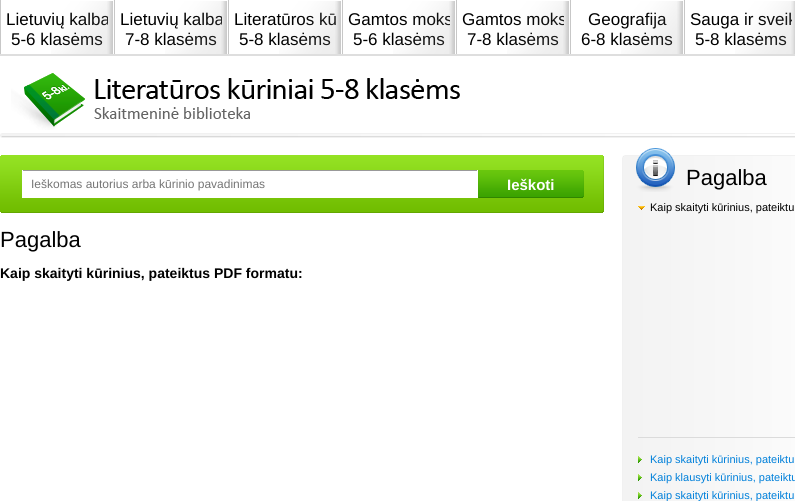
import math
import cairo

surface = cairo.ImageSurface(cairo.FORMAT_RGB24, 795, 501)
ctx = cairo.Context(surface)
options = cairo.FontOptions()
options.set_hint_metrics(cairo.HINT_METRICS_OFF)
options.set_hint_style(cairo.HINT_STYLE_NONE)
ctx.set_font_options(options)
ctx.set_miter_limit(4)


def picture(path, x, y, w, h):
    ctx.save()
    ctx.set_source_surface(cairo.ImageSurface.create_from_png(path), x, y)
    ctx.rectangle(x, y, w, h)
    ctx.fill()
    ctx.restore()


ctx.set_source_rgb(1, 1, 1)
ctx.paint()
ctx.set_source_rgb(0.871, 0.871, 0.871)
ctx.rectangle(0, 54, 795, 2)
ctx.fill()
ctx.set_source_rgb(0.78, 0.78, 0.78)
ctx.rectangle(0, 0, 1, 54)
ctx.fill()
ctx.save()
ctx.rectangle(6, 5, 102, 44)
ctx.clip()
ctx.select_font_face("Liberation Sans")
ctx.set_font_size(17)
ctx.set_source_rgb(0, 0, 0)
ctx.move_to(6, 25)
ctx.show_text("Lietuvių kalba")
ctx.restore()
ctx.select_font_face("Liberation Sans")
ctx.set_font_size(17)
ctx.set_source_rgb(0, 0, 0)
ctx.move_to(11, 45)
ctx.show_text("5-6 klasėms")
picture("img1.png", 51, 1, 62, 53)
ctx.set_source_rgb(0.78, 0.78, 0.78)
ctx.rectangle(114, 0, 1, 54)
ctx.fill()
ctx.save()
ctx.rectangle(120, 5, 102, 44)
ctx.clip()
ctx.set_source_rgb(0, 0, 0)
ctx.move_to(120, 25)
ctx.show_text("Lietuvių kalba")
ctx.restore()
ctx.set_source_rgb(0, 0, 0)
ctx.move_to(125, 45)
ctx.show_text("7-8 klasėms")
picture("img1.png", 165, 1, 62, 53)
ctx.set_source_rgb(0.78, 0.78, 0.78)
ctx.rectangle(228, 0, 1, 54)
ctx.fill()
ctx.set_source_rgb(0, 0, 0)
ctx.move_to(234, 25)
ctx.show_text("Literatūros kū")
ctx.move_to(239, 45)
ctx.show_text("5-8 klasėms")
picture("img2.png", 279, 1, 62, 53)
ctx.set_source_rgb(0.78, 0.78, 0.78)
ctx.rectangle(342, 0, 1, 54)
ctx.fill()
ctx.save()
ctx.rectangle(348, 5, 102, 44)
ctx.clip()
ctx.set_source_rgb(0, 0, 0)
ctx.move_to(348, 25)
ctx.show_text("Gamtos moks")
ctx.restore()
ctx.set_source_rgb(0, 0, 0)
ctx.move_to(353, 45)
ctx.show_text("5-6 klasėms")
picture("img3.png", 393, 1, 62, 53)
ctx.set_source_rgb(0.78, 0.78, 0.78)
ctx.rectangle(456, 0, 1, 54)
ctx.fill()
ctx.save()
ctx.rectangle(462, 5, 102, 44)
ctx.clip()
ctx.set_source_rgb(0, 0, 0)
ctx.move_to(462, 25)
ctx.show_text("Gamtos moks")
ctx.restore()
ctx.set_source_rgb(0, 0, 0)
ctx.move_to(467, 45)
ctx.show_text("7-8 klasėms")
picture("img3.png", 507, 1, 62, 53)
ctx.set_source_rgb(0.78, 0.78, 0.78)
ctx.rectangle(570, 0, 1, 54)
ctx.fill()
ctx.set_source_rgb(0, 0, 0)
ctx.move_to(588, 25)
ctx.show_text("Geografija")
ctx.move_to(581, 45)
ctx.show_text("6-8 klasėms")
picture("img4.png", 621, 1, 62, 53)
ctx.set_source_rgb(0.78, 0.78, 0.78)
ctx.rectangle(684, 0, 1, 54)
ctx.fill()
ctx.save()
ctx.rectangle(690, 5, 102, 44)
ctx.clip()
ctx.set_source_rgb(0, 0, 0)
ctx.move_to(690, 25)
ctx.show_text("Sauga ir sveik")
ctx.restore()
ctx.set_source_rgb(0, 0, 0)
ctx.move_to(695, 45)
ctx.show_text("5-8 klasėms")
picture("img5.png", 735, 1, 60, 53)
picture("img6.png", 11, 73, 449, 57)
picture("img7.png", 0, 133, 795, 5)
picture("img8.png", 0, 155, 604, 58)
ctx.set_source_rgb(1, 1, 1)
ctx.rectangle(23, 171, 454, 27)
ctx.fill()
ctx.set_source_rgb(0.6, 0.6, 0.6)
ctx.rectangle(22, 170, 456, 1)
ctx.fill()
ctx.set_source_rgb(1, 1, 1)
ctx.rectangle(477, 170, 1, 28)
ctx.fill()
ctx.rectangle(22, 170, 1, 28)
ctx.fill()
ctx.set_font_size(12)
ctx.set_source_rgb(0.459, 0.459, 0.459)
ctx.move_to(31, 188)
ctx.show_text("Ieškomas autorius arba kūrinio pavadinimas")
picture("img9.png", 478, 170, 106, 28)
ctx.select_font_face("Liberation Sans", cairo.FONT_SLANT_NORMAL, cairo.FONT_WEIGHT_BOLD)
ctx.set_font_size(15)
ctx.set_source_rgb(1, 1, 1)
ctx.move_to(507, 190)
ctx.show_text("Ieškoti")
ctx.select_font_face("Liberation Sans")
ctx.set_font_size(22)
ctx.set_source_rgb(0, 0, 0)
ctx.move_to(0, 247)
ctx.show_text("Pagalba")
ctx.select_font_face("Liberation Sans", cairo.FONT_SLANT_NORMAL, cairo.FONT_WEIGHT_BOLD)
ctx.set_font_size(14)
ctx.move_to(0, 278)
ctx.show_text("Kaip skaityti kūrinius, pateiktus PDF formatu:")
picture("img10.png", 622, 155, 173, 346)
picture("img11.png", 636, 148, 39, 44)
ctx.select_font_face("Liberation Sans")
ctx.set_font_size(22)
ctx.move_to(686, 185)
ctx.show_text("Pagalba")
picture("img12.png", 638, 206, 7, 4)
ctx.set_font_size(11)
ctx.move_to(650, 211)
ctx.show_text("Kaip skaityti kūrinius, pateiktu")
ctx.set_source_rgb(0.859, 0.859, 0.859)
ctx.rectangle(638, 437, 157, 1)
ctx.fill()
picture("img13.png", 638, 456, 4, 7)
ctx.set_source_rgb(0, 0.502, 0.855)
ctx.move_to(650, 463)
ctx.show_text("Kaip skaityti kūrinius, pateiktu")
picture("img13.png", 638, 474, 4, 7)
ctx.move_to(650, 481)
ctx.show_text("Kaip klausyti kūrinius, pateiktu")
picture("img13.png", 638, 492, 4, 7)
ctx.move_to(650, 499)
ctx.show_text("Kaip skaityti kūrinius, pateiktu")
surface.write_to_png("page.png")
